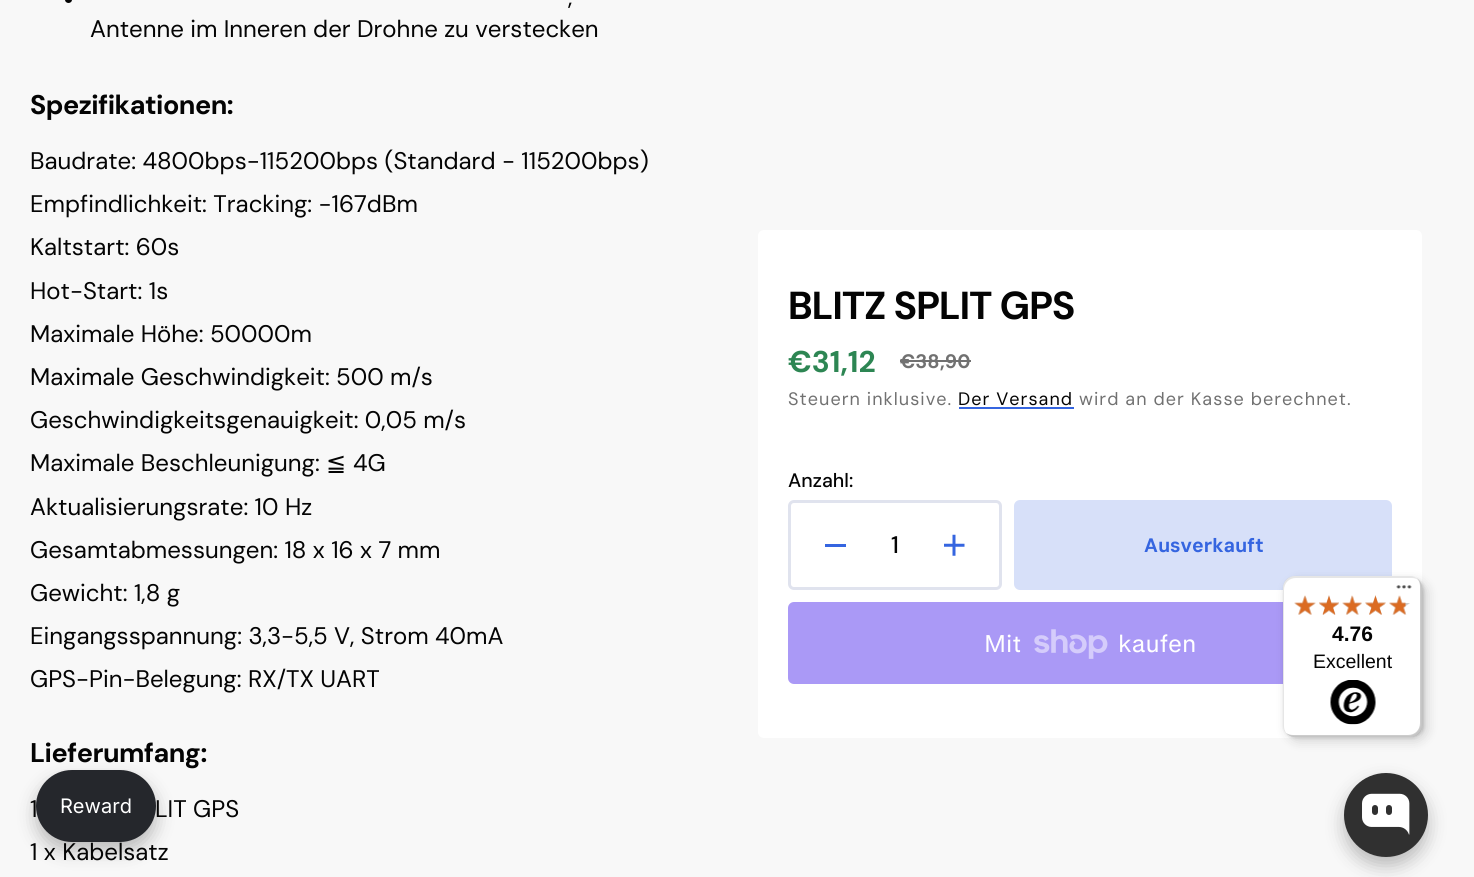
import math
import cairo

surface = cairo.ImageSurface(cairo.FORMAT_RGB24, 1474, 877)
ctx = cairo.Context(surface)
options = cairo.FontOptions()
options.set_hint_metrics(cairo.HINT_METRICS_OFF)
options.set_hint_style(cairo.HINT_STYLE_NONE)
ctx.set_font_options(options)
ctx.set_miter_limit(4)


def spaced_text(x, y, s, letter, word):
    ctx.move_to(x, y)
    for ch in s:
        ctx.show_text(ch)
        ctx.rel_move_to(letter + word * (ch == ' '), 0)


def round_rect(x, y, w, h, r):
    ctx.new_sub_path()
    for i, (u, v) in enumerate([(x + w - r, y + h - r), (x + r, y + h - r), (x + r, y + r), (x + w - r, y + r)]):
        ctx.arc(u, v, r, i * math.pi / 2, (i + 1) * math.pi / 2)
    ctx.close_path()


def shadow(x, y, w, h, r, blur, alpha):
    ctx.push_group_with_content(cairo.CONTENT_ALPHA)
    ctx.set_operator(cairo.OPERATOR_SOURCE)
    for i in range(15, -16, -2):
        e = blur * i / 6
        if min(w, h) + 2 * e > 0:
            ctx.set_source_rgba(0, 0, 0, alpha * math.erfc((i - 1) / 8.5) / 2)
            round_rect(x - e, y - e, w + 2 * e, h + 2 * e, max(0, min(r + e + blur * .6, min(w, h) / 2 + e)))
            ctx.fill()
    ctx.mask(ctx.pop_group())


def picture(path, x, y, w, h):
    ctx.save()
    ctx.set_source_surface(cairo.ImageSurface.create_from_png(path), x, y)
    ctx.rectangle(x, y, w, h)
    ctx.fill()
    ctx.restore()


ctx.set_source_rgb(0.969, 0.969, 0.969)
ctx.paint()
ctx.set_source_rgb(0.016, 0.016, 0.016)
ctx.arc(68.5, -0.5, 3.5, 0, 2 * math.pi)
ctx.fill()
ctx.select_font_face("DM Sans")
ctx.set_font_size(24)
ctx.move_to(568, 5)
ctx.show_text(",")
ctx.move_to(90, 37)
ctx.show_text("Antenne im Inneren der Drohne zu verstecken")
ctx.select_font_face("DM Sans", cairo.FONT_SLANT_NORMAL, cairo.FONT_WEIGHT_BOLD)
ctx.set_font_size(27)
spaced_text(30, 114, "Spezifikationen:", -0.5, 0)
ctx.select_font_face("DM Sans")
ctx.set_font_size(24)
ctx.move_to(30, 169)
ctx.show_text("Baudrate: 4800bps-115200bps (Standard - 115200bps)")
ctx.move_to(30, 212)
ctx.show_text("Empfindlichkeit: Tracking: -167dBm")
ctx.move_to(30, 255)
ctx.show_text("Kaltstart: 60s")
ctx.move_to(30, 299)
ctx.show_text("Hot-Start: 1s")
ctx.move_to(30, 342)
ctx.show_text("Maximale Höhe: 50000m")
ctx.move_to(30, 385)
ctx.show_text("Maximale Geschwindigkeit: 500 m/s")
ctx.move_to(30, 428)
ctx.show_text("Geschwindigkeitsgenauigkeit: 0,05 m/s")
ctx.move_to(30, 471)
ctx.show_text("Maximale Beschleunigung:")
ctx.select_font_face("DejaVu Sans")
ctx.move_to(326, 471)
ctx.show_text("≦")
ctx.select_font_face("DM Sans")
ctx.move_to(353, 471)
ctx.show_text("4G")
ctx.move_to(30, 515)
ctx.show_text("Aktualisierungsrate: 10 Hz")
ctx.move_to(30, 558)
ctx.show_text("Gesamtabmessungen: 18 x 16 x 7 mm")
ctx.move_to(30, 601)
ctx.show_text("Gewicht: 1,8 g")
ctx.move_to(30, 644)
ctx.show_text("Eingangsspannung: 3,3-5,5 V, Strom 40mA")
ctx.move_to(30, 687)
ctx.show_text("GPS-Pin-Belegung: RX/TX UART")
ctx.select_font_face("DM Sans", cairo.FONT_SLANT_NORMAL, cairo.FONT_WEIGHT_BOLD)
ctx.set_font_size(27)
spaced_text(30, 762, "Lieferumfang:", -0.5, 0)
ctx.select_font_face("DM Sans")
ctx.set_font_size(24)
ctx.move_to(30, 817)
ctx.show_text("1")
ctx.move_to(155, 817)
ctx.show_text("LIT GPS")
ctx.move_to(30, 860)
ctx.show_text("1 x Kabelsatz")
ctx.set_source_rgb(1, 1, 1)
round_rect(758, 230, 664, 508, 6)
ctx.fill()
ctx.select_font_face("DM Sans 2", cairo.FONT_SLANT_NORMAL, cairo.FONT_WEIGHT_BOLD)
ctx.set_font_size(39)
ctx.set_source_rgb(0.016, 0.016, 0.016)
spaced_text(788, 319, "BLITZ SPLIT GPS", -0.75, 0)
ctx.select_font_face("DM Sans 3", cairo.FONT_SLANT_NORMAL, cairo.FONT_WEIGHT_BOLD)
ctx.set_font_size(30)
ctx.set_source_rgb(0.176, 0.525, 0.325)
ctx.move_to(788, 372)
ctx.show_text("€31,12")
ctx.select_font_face("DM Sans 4", cairo.FONT_SLANT_NORMAL, cairo.FONT_WEIGHT_BOLD)
ctx.set_font_size(19.5)
ctx.set_source_rgb(0.443, 0.443, 0.443)
ctx.move_to(900, 368)
ctx.show_text("€38,90")
ctx.rectangle(900, 360, 71, 2)
ctx.fill()
ctx.select_font_face("DM Sans 2")
ctx.set_font_size(18)
spaced_text(788, 405, "Steuern inklusive.", 1.05, 0)
ctx.set_source_rgb(0.016, 0.016, 0.016)
spaced_text(958, 405, "Der Versand", 1.05, 0)
ctx.set_source_rgb(0.208, 0.396, 0.878)
ctx.rectangle(959, 407, 115, 2)
ctx.fill()
ctx.set_source_rgb(0.443, 0.443, 0.443)
spaced_text(1079, 405, "wird an der Kasse berechnet.", 1.05, 0)
ctx.select_font_face("DM Sans Medium")
ctx.set_font_size(19.5)
ctx.set_source_rgb(0.016, 0.016, 0.016)
ctx.move_to(788, 487)
ctx.show_text("Anzahl:")
round_rect(789.5, 501.5, 211, 87, 4.5)
ctx.set_source_rgb(0.878, 0.89, 0.933)
ctx.set_line_width(3)
ctx.stroke()
ctx.set_source_rgb(0.208, 0.396, 0.878)
ctx.new_path()
ctx.move_to(834, 544)
ctx.line_to(846, 544)
ctx.line_to(846, 547)
ctx.line_to(825, 547)
ctx.line_to(825, 544)
ctx.close_path()
ctx.fill()
ctx.select_font_face("DM Sans 2 Medium")
ctx.set_font_size(24)
ctx.set_source_rgb(0.016, 0.016, 0.016)
ctx.move_to(891, 553)
ctx.show_text("1")
picture("img1.png", 944, 534, 21, 22)
ctx.set_source_rgb(0.843, 0.878, 0.976)
round_rect(1014, 500, 378, 90, 6)
ctx.fill()
ctx.select_font_face("DM Sans 4", cairo.FONT_SLANT_NORMAL, cairo.FONT_WEIGHT_BOLD)
ctx.set_font_size(19.5)
ctx.set_source_rgb(0.208, 0.396, 0.878)
ctx.move_to(1144, 552)
ctx.show_text("Ausverkauft")
ctx.set_source_rgb(0.667, 0.6, 0.961)
round_rect(788, 602, 604, 82, 6)
ctx.fill()
ctx.select_font_face("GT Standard")
ctx.set_font_size(24)
ctx.set_source_rgb(1, 1, 1)
ctx.move_to(984, 652)
ctx.show_text("Mit")
picture("img2.png", 1034, 629, 74, 30)
ctx.move_to(1118, 652)
ctx.show_text("kaufen")
ctx.set_source_rgb(0, 0, 0)
shadow(1287, 581, 140, 160, 12, 6, 0.15)
shadow(1284, 578, 140, 160, 12, 1.5, 0.15)
ctx.set_source_rgb(1, 1, 1)
round_rect(1283, 576, 139, 161, 12)
ctx.fill()
ctx.set_source_rgba(0, 0, 0, 0.1)
ctx.new_path()
ctx.move_to(1296, 578)
ctx.line_to(1412, 578)
ctx.curve_to(1415, 578, 1417, 579, 1420, 581)
ctx.curve_to(1417, 578, 1414, 576, 1410, 576)
ctx.line_to(1295, 576)
ctx.curve_to(1288, 576, 1283, 581, 1283, 588)
ctx.line_to(1283, 725)
ctx.curve_to(1283, 728, 1284, 731, 1286, 733)
ctx.curve_to(1285, 731, 1284, 729, 1284, 726)
ctx.line_to(1284, 590)
ctx.curve_to(1284, 583, 1289, 578, 1296, 578)
ctx.close_path()
ctx.fill()
ctx.set_source_rgba(0, 0, 0, 0.2)
ctx.new_path()
ctx.move_to(1286, 733)
ctx.curve_to(1288, 735, 1291, 737, 1295, 737)
ctx.line_to(1410, 737)
ctx.curve_to(1417, 737, 1422, 732, 1422, 725)
ctx.line_to(1422, 588)
ctx.curve_to(1422, 584, 1420, 581, 1417, 578)
ctx.curve_to(1419, 581, 1420, 583, 1420, 586)
ctx.line_to(1420, 723)
ctx.curve_to(1420, 730, 1415, 735, 1408, 735)
ctx.line_to(1293, 735)
ctx.curve_to(1290, 735, 1288, 734, 1286, 733)
ctx.close_path()
ctx.fill()
ctx.set_source_rgba(0.196, 0.196, 0.196, 0.2)
ctx.new_path()
ctx.move_to(1286, 733)
ctx.curve_to(1288, 735, 1291, 737, 1295, 737)
ctx.line_to(1410, 737)
ctx.curve_to(1417, 737, 1422, 732, 1422, 725)
ctx.line_to(1422, 588)
ctx.curve_to(1422, 585, 1421, 582, 1419, 580)
ctx.curve_to(1420, 582, 1421, 584, 1421, 587)
ctx.line_to(1421, 724)
ctx.curve_to(1421, 730, 1416, 736, 1409, 736)
ctx.line_to(1294, 736)
ctx.curve_to(1291, 736, 1288, 735, 1286, 733)
ctx.close_path()
ctx.fill()
ctx.set_source_rgba(1, 1, 1, 0.3)
ctx.new_path()
ctx.move_to(1286, 733)
ctx.curve_to(1288, 735, 1291, 737, 1295, 737)
ctx.line_to(1410, 737)
ctx.curve_to(1417, 737, 1422, 732, 1422, 725)
ctx.line_to(1422, 588)
ctx.curve_to(1422, 584, 1420, 581, 1418, 579)
ctx.curve_to(1420, 581, 1421, 584, 1421, 587)
ctx.line_to(1421, 724)
ctx.curve_to(1421, 730, 1416, 736, 1409, 736)
ctx.line_to(1294, 736)
ctx.curve_to(1291, 736, 1288, 735, 1286, 733)
ctx.close_path()
ctx.fill()
picture("img3.png", 1396, 585, 16, 4)
picture("img4.png", 1294, 596, 22, 19)
picture("img5.png", 1319, 595, 20, 20)
picture("img6.png", 1342, 596, 20, 19)
picture("img7.png", 1365, 595, 21, 20)
picture("img8.png", 1389, 596, 21, 19)
picture("img9.png", 1294, 595, 22, 20)
picture("img10.png", 1319, 595, 20, 20)
picture("img11.png", 1342, 595, 20, 20)
picture("img12.png", 1365, 595, 21, 20)
picture("img13.png", 1389, 595, 17, 20)
ctx.select_font_face("Liberation Sans", cairo.FONT_SLANT_NORMAL, cairo.FONT_WEIGHT_BOLD)
ctx.set_font_size(21)
ctx.set_source_rgb(0.016, 0.016, 0.016)
ctx.move_to(1332, 641)
ctx.show_text("4.76")
ctx.select_font_face("Liberation Sans")
ctx.set_font_size(19.5)
ctx.move_to(1313, 668)
ctx.show_text("Excellent")
picture("img14.png", 1330, 680, 46, 45)
ctx.set_source_rgb(0, 0, 0)
shadow(36, 779, 120, 72, 36, 9, 0.25)
ctx.set_source_rgb(0.145, 0.153, 0.173)
round_rect(36, 770, 120, 72, 36)
ctx.fill()
ctx.select_font_face("Inter")
ctx.set_font_size(20)
ctx.set_source_rgb(1, 1, 1)
ctx.move_to(60, 813)
ctx.show_text("Reward")
ctx.set_source_rgb(0, 0, 0)
shadow(1344, 782, 84, 84, 42, 9, 0.25)
ctx.set_source_rgb(0.188, 0.188, 0.188)
ctx.arc(1386, 815, 42, 0, 2 * math.pi)
ctx.fill()
picture("img15.png", 1362, 793, 48, 42)
surface.write_to_png("page.png")
